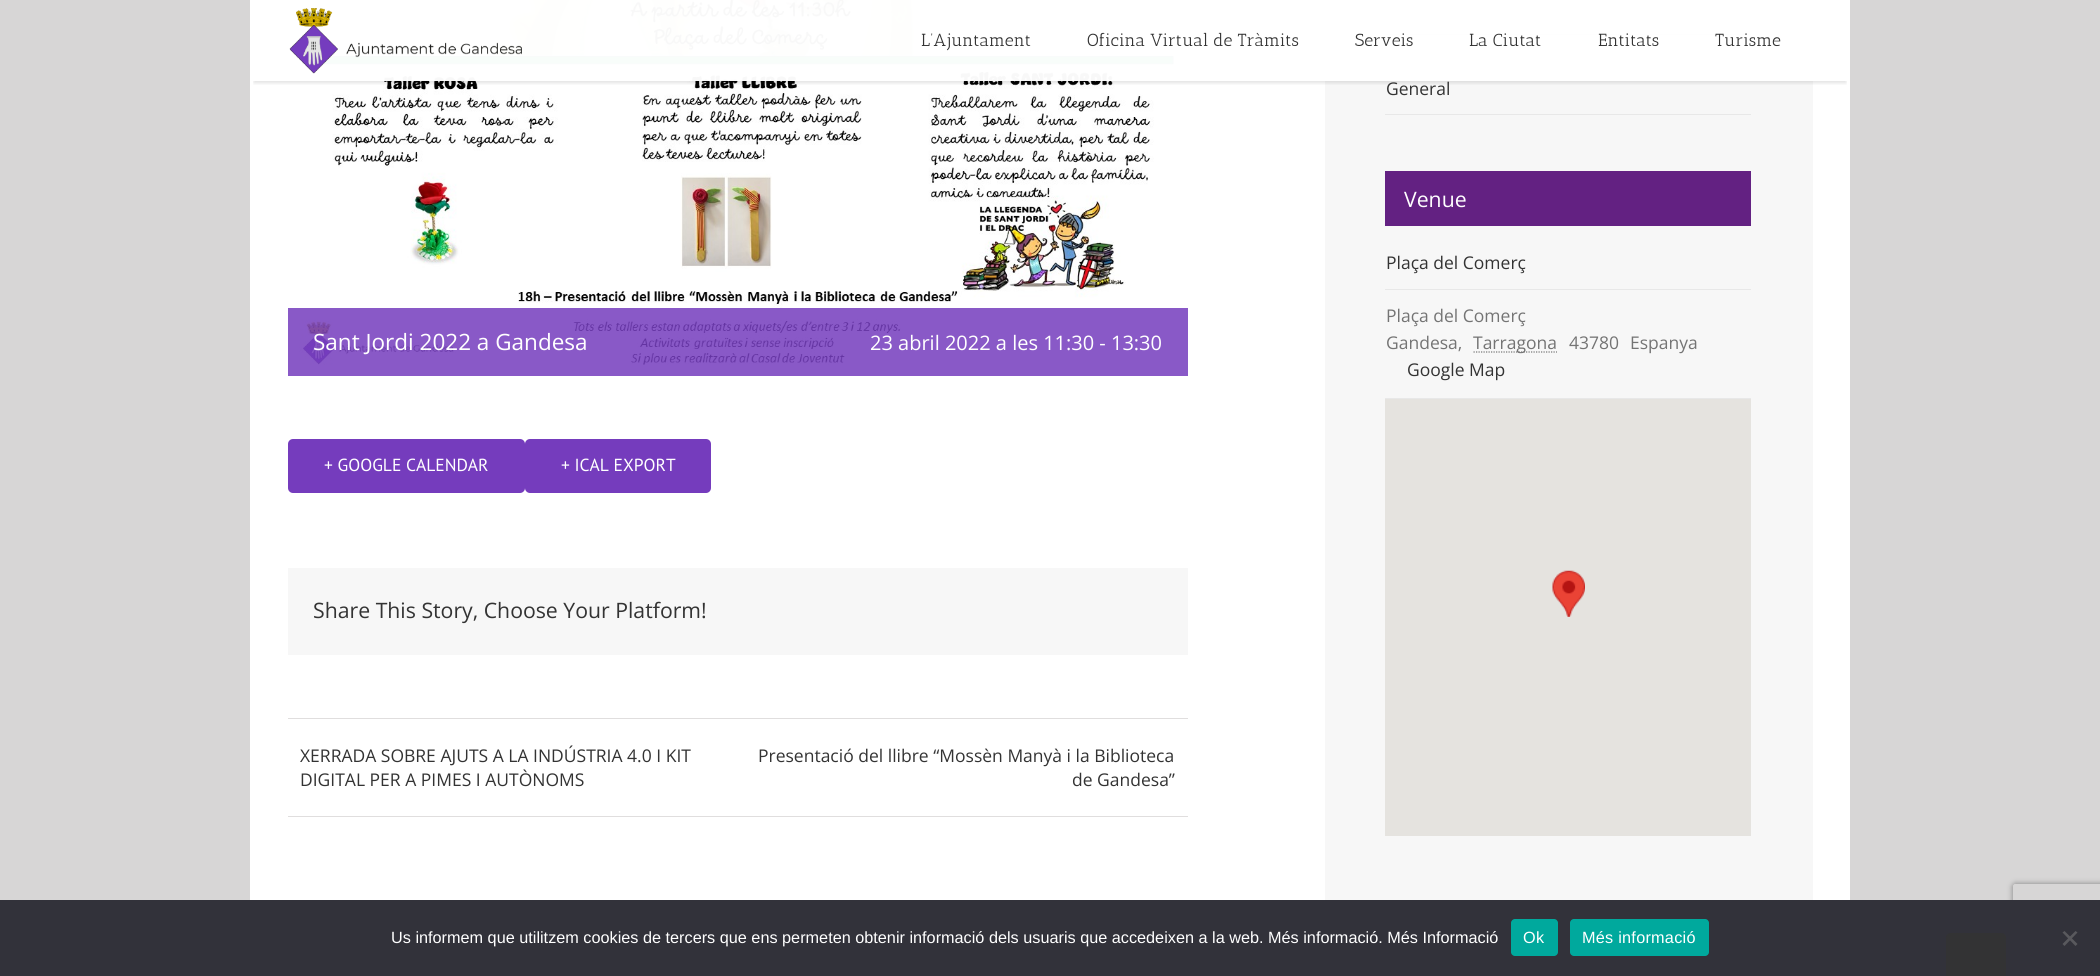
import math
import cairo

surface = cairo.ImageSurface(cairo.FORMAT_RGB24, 2100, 976)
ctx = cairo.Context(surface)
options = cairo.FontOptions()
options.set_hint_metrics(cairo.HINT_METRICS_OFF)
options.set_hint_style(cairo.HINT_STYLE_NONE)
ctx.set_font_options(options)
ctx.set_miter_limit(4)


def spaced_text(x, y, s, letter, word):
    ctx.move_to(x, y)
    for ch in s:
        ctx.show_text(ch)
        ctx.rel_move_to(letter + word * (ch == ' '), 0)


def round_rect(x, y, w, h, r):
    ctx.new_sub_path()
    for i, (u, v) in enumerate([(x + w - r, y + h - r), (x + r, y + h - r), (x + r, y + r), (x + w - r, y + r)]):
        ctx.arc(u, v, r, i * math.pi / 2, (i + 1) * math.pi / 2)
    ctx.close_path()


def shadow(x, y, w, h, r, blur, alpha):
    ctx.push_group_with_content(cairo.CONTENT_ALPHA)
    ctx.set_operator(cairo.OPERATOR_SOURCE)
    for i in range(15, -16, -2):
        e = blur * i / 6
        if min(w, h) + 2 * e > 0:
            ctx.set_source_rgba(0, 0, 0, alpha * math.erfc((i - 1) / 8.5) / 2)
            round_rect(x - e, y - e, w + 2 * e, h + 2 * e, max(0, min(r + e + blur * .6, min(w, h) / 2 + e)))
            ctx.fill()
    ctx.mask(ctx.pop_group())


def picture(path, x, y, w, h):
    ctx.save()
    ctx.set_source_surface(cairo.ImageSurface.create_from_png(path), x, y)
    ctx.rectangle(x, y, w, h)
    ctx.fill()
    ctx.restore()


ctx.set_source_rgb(0.843, 0.839, 0.839)
ctx.paint()
ctx.set_source_rgb(1, 1, 1)
ctx.rectangle(250, 0, 1600, 900)
ctx.fill()
ctx.set_source_rgb(0.965, 0.965, 0.965)
ctx.rectangle(1325, 0, 488, 900)
ctx.fill()
ctx.set_source_rgb(0.91, 0.91, 0.91)
ctx.rectangle(1385, 34, 366, 1)
ctx.fill()
picture("img3.png", 299, 0, 877, 365)
ctx.save()
ctx.rectangle(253, 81, 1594, 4)
ctx.clip()
ctx.set_source_rgb(0, 0, 0)
shadow(254, 9, 1592, 74, 0, 2, 0.12)
ctx.restore()
ctx.set_source_rgba(1, 1, 1, 0.97)
ctx.rectangle(299, 0, 1514, 81)
ctx.fill()
picture("img1.png", 289, 8, 233, 66)
ctx.select_font_face("Antic Slab")
ctx.set_font_size(17.5)
ctx.set_source_rgb(0.2, 0.2, 0.2)
ctx.move_to(921, 46)
ctx.show_text("L’Ajuntament")
ctx.move_to(1087, 46)
ctx.show_text("Oficina Virtual de Tràmits")
ctx.move_to(1355, 46)
ctx.show_text("Serveis")
ctx.move_to(1469, 46)
ctx.show_text("La Ciutat")
ctx.move_to(1598, 46)
ctx.show_text("Entitats")
ctx.move_to(1715, 46)
ctx.show_text("Turisme")
ctx.set_source_rgb(0.91, 0.91, 0.91)
ctx.rectangle(1385, 114, 366, 1)
ctx.fill()
ctx.select_font_face("Open Sans")
ctx.set_source_rgb(0.2, 0.2, 0.2)
ctx.move_to(1386, 95)
ctx.show_text("General")
ctx.set_source_rgb(0.388, 0.129, 0.51)
ctx.rectangle(1385, 171, 366, 55)
ctx.fill()
ctx.set_font_size(21.25)
ctx.set_source_rgb(1, 1, 1)
ctx.move_to(1404, 207)
ctx.show_text("Venue")
ctx.set_source_rgb(0.91, 0.91, 0.91)
ctx.rectangle(1385, 289, 366, 1)
ctx.fill()
ctx.set_font_size(17.5)
ctx.set_source_rgb(0.2, 0.2, 0.2)
ctx.move_to(1386, 269)
ctx.show_text("Plaça del Comerç")
ctx.set_source_rgb(0.91, 0.91, 0.91)
ctx.rectangle(1385, 398, 366, 1)
ctx.fill()
ctx.set_source_rgb(0.455, 0.455, 0.455)
ctx.move_to(1386, 322)
ctx.show_text("Plaça del Comerç")
ctx.move_to(1386, 349)
ctx.show_text("Gandesa,")
ctx.new_path()
ctx.move_to(1473.5, 352)
ctx.line_to(1557, 352)
ctx.set_line_width(1.2)
ctx.set_dash([1.25, 1.25])
ctx.stroke()
ctx.move_to(1473, 349)
ctx.show_text("Tarragona")
ctx.move_to(1569, 349)
ctx.show_text("43780")
ctx.move_to(1630, 349)
ctx.show_text("Espanya")
ctx.set_source_rgb(0.2, 0.2, 0.2)
ctx.move_to(1407, 376)
ctx.show_text("Google Map")
ctx.set_source_rgb(0.898, 0.89, 0.875)
ctx.rectangle(1385, 399, 366, 437)
ctx.fill()
picture("img2.png", 1552, 570, 33, 47)
ctx.set_source_rgba(0.459, 0.235, 0.741, 0.85)
ctx.rectangle(288, 308, 900, 68)
ctx.fill()
ctx.set_font_size(22.5)
ctx.set_source_rgb(1, 1, 1)
ctx.move_to(313, 350)
ctx.show_text("Sant Jordi 2022 a Gandesa")
ctx.set_font_size(20)
ctx.move_to(870, 350)
ctx.show_text("23 abril 2022 a les 11:30 - 13:30")
ctx.set_source_rgb(0.459, 0.235, 0.741)
round_rect(288, 439, 237, 54, 5)
ctx.fill()
ctx.select_font_face("PT Sans")
ctx.set_font_size(17.5)
ctx.set_source_rgb(1, 1, 1)
ctx.move_to(324, 471)
ctx.show_text("+ GOOGLE CALENDAR")
ctx.set_source_rgb(0.459, 0.235, 0.741)
round_rect(525, 439, 186, 54, 5)
ctx.fill()
ctx.set_source_rgb(1, 1, 1)
ctx.move_to(561, 471)
ctx.show_text("+ ICAL EXPORT")
ctx.set_source_rgb(0.965, 0.965, 0.965)
ctx.rectangle(288, 568, 900, 87)
ctx.fill()
ctx.select_font_face("Open Sans")
ctx.set_font_size(21.25)
ctx.set_source_rgb(0.2, 0.2, 0.2)
ctx.move_to(313, 618)
ctx.show_text("Share This Story, Choose Your Platform!")
ctx.set_source_rgb(0.878, 0.871, 0.871)
ctx.rectangle(288, 718, 900, 1)
ctx.fill()
ctx.rectangle(288, 816, 900, 1)
ctx.fill()
ctx.set_font_size(17.5)
ctx.set_source_rgb(0.2, 0.2, 0.2)
ctx.move_to(300, 762)
ctx.show_text("XERRADA SOBRE AJUTS A LA INDÚSTRIA 4.0 I KIT")
ctx.move_to(300, 786)
ctx.show_text("DIGITAL PER A PIMES I AUTÒNOMS")
ctx.move_to(758, 762)
ctx.show_text("Presentació del llibre “Mossèn Manyà i la Biblioteca")
ctx.move_to(1072, 786)
ctx.show_text("de Gandesa”")
ctx.save()
ctx.set_fill_rule(cairo.FILL_RULE_EVEN_ODD)
ctx.new_path()
ctx.move_to(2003, 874)
ctx.line_to(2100, 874)
ctx.line_to(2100, 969)
ctx.line_to(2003, 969)
ctx.close_path()
ctx.move_to(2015.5, 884)
ctx.line_to(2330.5, 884)
ctx.curve_to(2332, 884, 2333, 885, 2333, 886.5)
ctx.line_to(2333, 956.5)
ctx.curve_to(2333, 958, 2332, 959, 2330.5, 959)
ctx.line_to(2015.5, 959)
ctx.curve_to(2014, 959, 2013, 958, 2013, 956.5)
ctx.line_to(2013, 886.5)
ctx.curve_to(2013, 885, 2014, 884, 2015.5, 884)
ctx.close_path()
ctx.clip()
ctx.set_source_rgb(0.502, 0.502, 0.502)
shadow(2013, 884, 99, 75, 2.5, 3, 1)
ctx.restore()
ctx.set_source_rgb(0.196, 0.196, 0.227)
ctx.rectangle(0, 900, 2100, 76)
ctx.fill()
ctx.select_font_face("Liberation Sans")
ctx.set_font_size(16.25)
ctx.set_source_rgb(1, 1, 1)
ctx.move_to(391, 943)
ctx.show_text("Us informem que utilitzem cookies de tercers que ens permeten obtenir informació dels usuaris que accedeixen a la web. Més informació. Més Informació")
ctx.set_source_rgb(0, 0.663, 0.616)
round_rect(1511, 919, 47, 37, 4)
ctx.fill()
ctx.set_source_rgb(1, 1, 1)
spaced_text(1523, 943, "Ok", 0.25, 0)
ctx.set_source_rgb(0, 0.663, 0.616)
round_rect(1570, 919, 139, 37, 4)
ctx.fill()
ctx.set_source_rgb(1, 1, 1)
spaced_text(1582, 943, "Més informació", 0.25, 0)
ctx.set_source_rgb(0.349, 0.349, 0.365)
ctx.new_path()
ctx.move_to(2075.5, 931)
ctx.line_to(2077.5, 932.5)
ctx.line_to(2064.5, 946)
ctx.line_to(2062.5, 944)
ctx.close_path()
ctx.fill()
ctx.new_path()
ctx.move_to(2062.5, 932.5)
ctx.line_to(2064.5, 931)
ctx.line_to(2077.5, 944)
ctx.line_to(2075.5, 946)
ctx.close_path()
ctx.fill()
ctx.set_source_rgb(0.2, 0.2, 0.204)
ctx.new_path()
ctx.move_to(1951, 933)
ctx.line_to(2001, 933)
ctx.curve_to(2004, 933, 2006, 935, 2006, 938)
ctx.line_to(2006, 976)
ctx.line_to(1946, 976)
ctx.line_to(1946, 938)
ctx.curve_to(1946, 935, 1948, 933, 1951, 933)
ctx.close_path()
ctx.fill()
surface.write_to_png("page.png")
